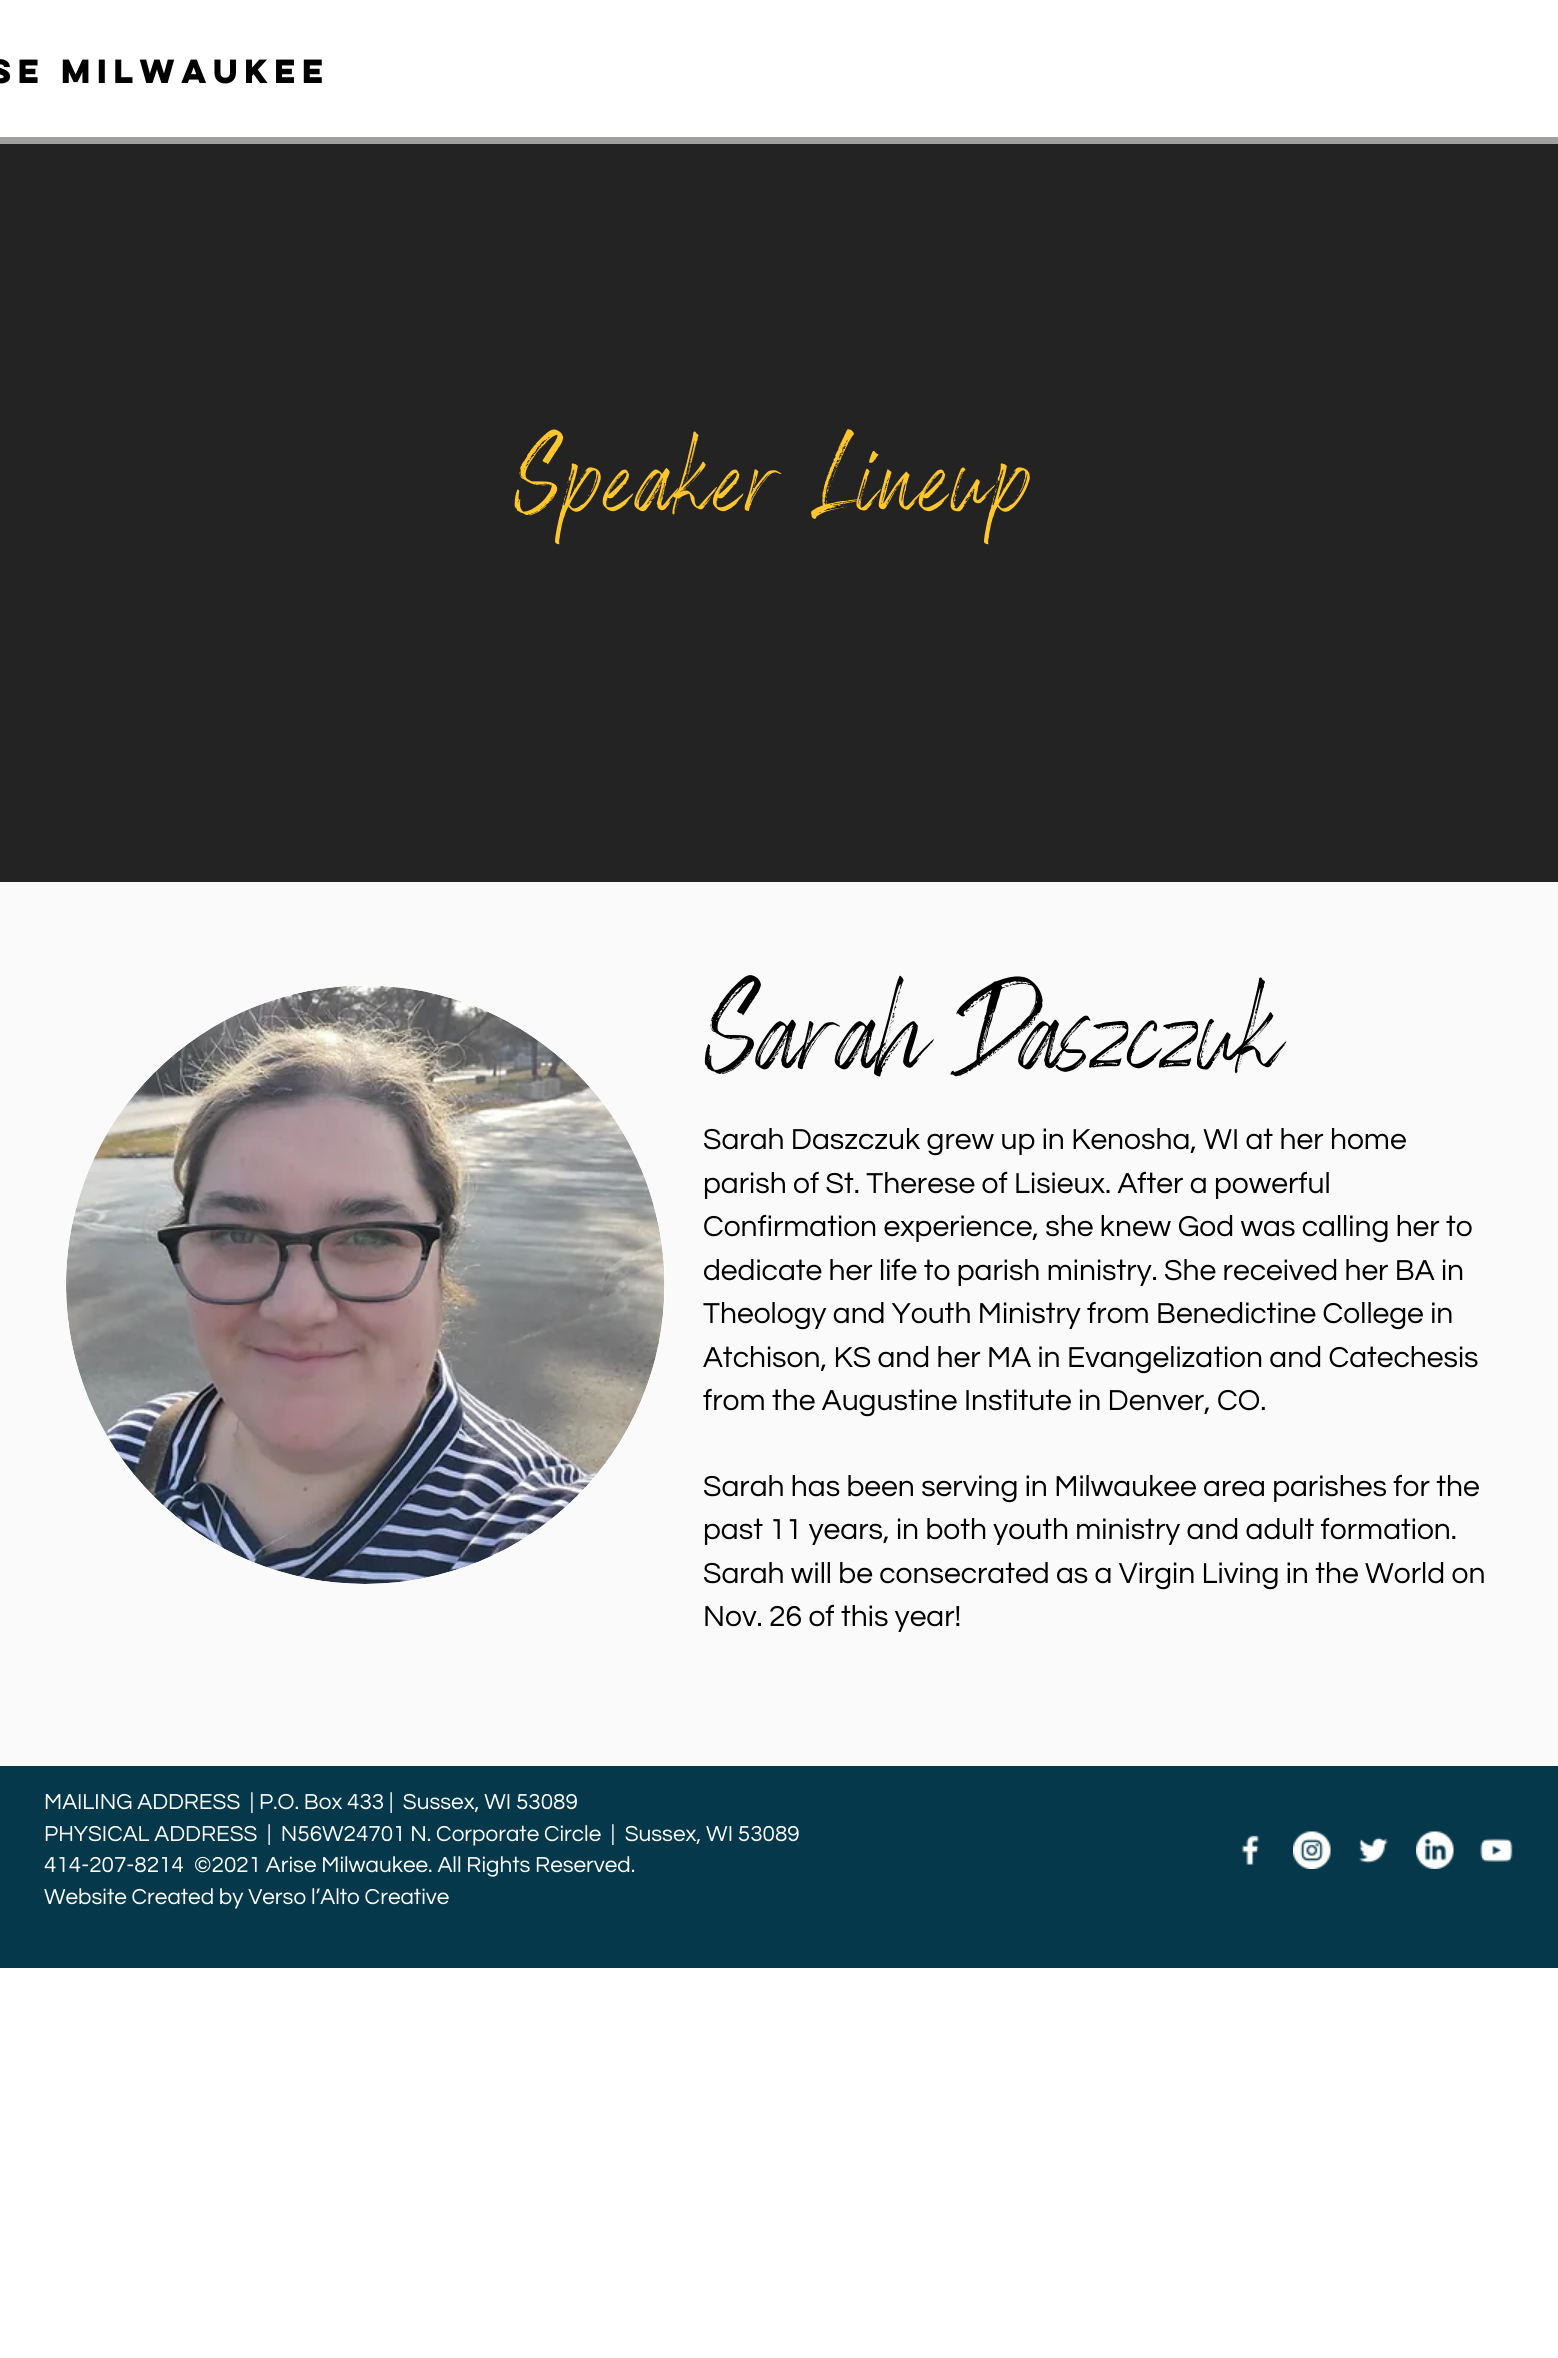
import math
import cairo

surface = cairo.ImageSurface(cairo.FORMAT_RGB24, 1558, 2358)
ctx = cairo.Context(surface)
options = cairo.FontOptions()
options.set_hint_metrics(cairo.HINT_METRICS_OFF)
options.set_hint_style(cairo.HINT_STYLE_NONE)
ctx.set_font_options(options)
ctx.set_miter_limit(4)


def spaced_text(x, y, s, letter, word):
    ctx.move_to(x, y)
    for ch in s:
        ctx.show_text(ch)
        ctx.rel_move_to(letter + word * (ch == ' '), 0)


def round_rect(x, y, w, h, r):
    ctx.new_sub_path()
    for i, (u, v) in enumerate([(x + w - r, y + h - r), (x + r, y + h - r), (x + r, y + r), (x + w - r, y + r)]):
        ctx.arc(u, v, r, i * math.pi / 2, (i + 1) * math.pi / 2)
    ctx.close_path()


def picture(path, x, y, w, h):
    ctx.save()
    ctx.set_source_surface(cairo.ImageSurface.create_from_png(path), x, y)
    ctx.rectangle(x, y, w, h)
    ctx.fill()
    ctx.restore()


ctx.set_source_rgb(1, 1, 1)
ctx.paint()
ctx.select_font_face("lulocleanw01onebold", cairo.FONT_SLANT_NORMAL, cairo.FONT_WEIGHT_BOLD)
ctx.set_font_size(30)
ctx.set_source_rgb(0, 0, 0)
ctx.move_to(-10, 83)
ctx.show_text("se Milwaukee")
ctx.set_source_rgb(0.627, 0.627, 0.624)
ctx.rectangle(0, 137, 1558, 7)
ctx.fill()
ctx.set_source_rgb(0.141, 0.137, 0.137)
ctx.rectangle(0, 144, 1558, 738)
ctx.fill()
ctx.select_font_face("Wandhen")
ctx.set_font_size(97.5)
ctx.set_source_rgb(1, 0.78, 0.173)
spaced_text(513, 510, "Speaker Lineup", 4.9, 0)
ctx.set_source_rgb(0.98, 0.98, 0.98)
ctx.rectangle(0, 882, 1558, 884)
ctx.fill()
ctx.set_source_rgb(1, 1, 1)
round_rect(66, 986, 599, 598, 299)
ctx.fill()
picture("img1.png", 66, 986, 599, 598)
ctx.set_font_size(112.5)
ctx.set_source_rgb(0, 0, 0)
ctx.move_to(703, 1068)
ctx.show_text("Sarah Daszczuk")
ctx.select_font_face("Questrial")
ctx.set_font_size(30)
ctx.move_to(703, 1149)
ctx.show_text("Sarah Daszczuk grew up in Kenosha, WI at her home")
ctx.move_to(703, 1193)
ctx.show_text("parish of St. Therese of Lisieux. After a powerful")
ctx.move_to(703, 1236)
ctx.show_text("Confirmation experience, she knew God was calling her to")
ctx.move_to(703, 1280)
ctx.show_text("dedicate her life to parish ministry. She received her BA in")
ctx.move_to(703, 1323)
ctx.show_text("Theology and Youth Ministry from Benedictine College in")
ctx.move_to(703, 1367)
ctx.show_text("Atchison, KS and her MA in Evangelization and Catechesis")
ctx.move_to(703, 1410)
ctx.show_text("from the Augustine Institute in Denver, CO.")
ctx.move_to(703, 1496)
ctx.show_text("Sarah has been serving in Milwaukee area parishes for the")
ctx.move_to(703, 1539)
ctx.show_text("past 11 years, in both youth ministry and adult formation.")
ctx.move_to(703, 1583)
ctx.show_text("Sarah will be consecrated as a Virgin Living in the World on")
ctx.move_to(703, 1626)
ctx.show_text("Nov. 26 of this year!")
ctx.set_source_rgb(0.016, 0.22, 0.29)
ctx.rectangle(0, 1766, 1558, 202)
ctx.fill()
ctx.set_font_size(22.5)
ctx.set_source_rgb(1, 1, 1)
ctx.move_to(44, 1809)
ctx.show_text("MAILING ADDRESS  | P.O. Box 433 |  Sussex, WI 53089")
ctx.move_to(44, 1841)
ctx.show_text("PHYSICAL ADDRESS  |  N56W24701 N. Corporate Circle  |  Sussex, WI 53089")
ctx.move_to(44, 1872)
ctx.show_text("414-207-8214")
ctx.move_to(194, 1872)
ctx.show_text("©2021 Arise Milwaukee. All Rights Reserved.")
ctx.move_to(44, 1904)
ctx.show_text("Website Created by Verso l’Alto Creative")
picture("img2.png", 1241, 1835, 18, 30)
picture("img3.png", 1293, 1831, 38, 38)
picture("img4.png", 1359, 1837, 29, 27)
picture("img5.png", 1416, 1831, 38, 38)
picture("img6.png", 1480, 1838, 33, 24)
surface.write_to_png("page.png")
